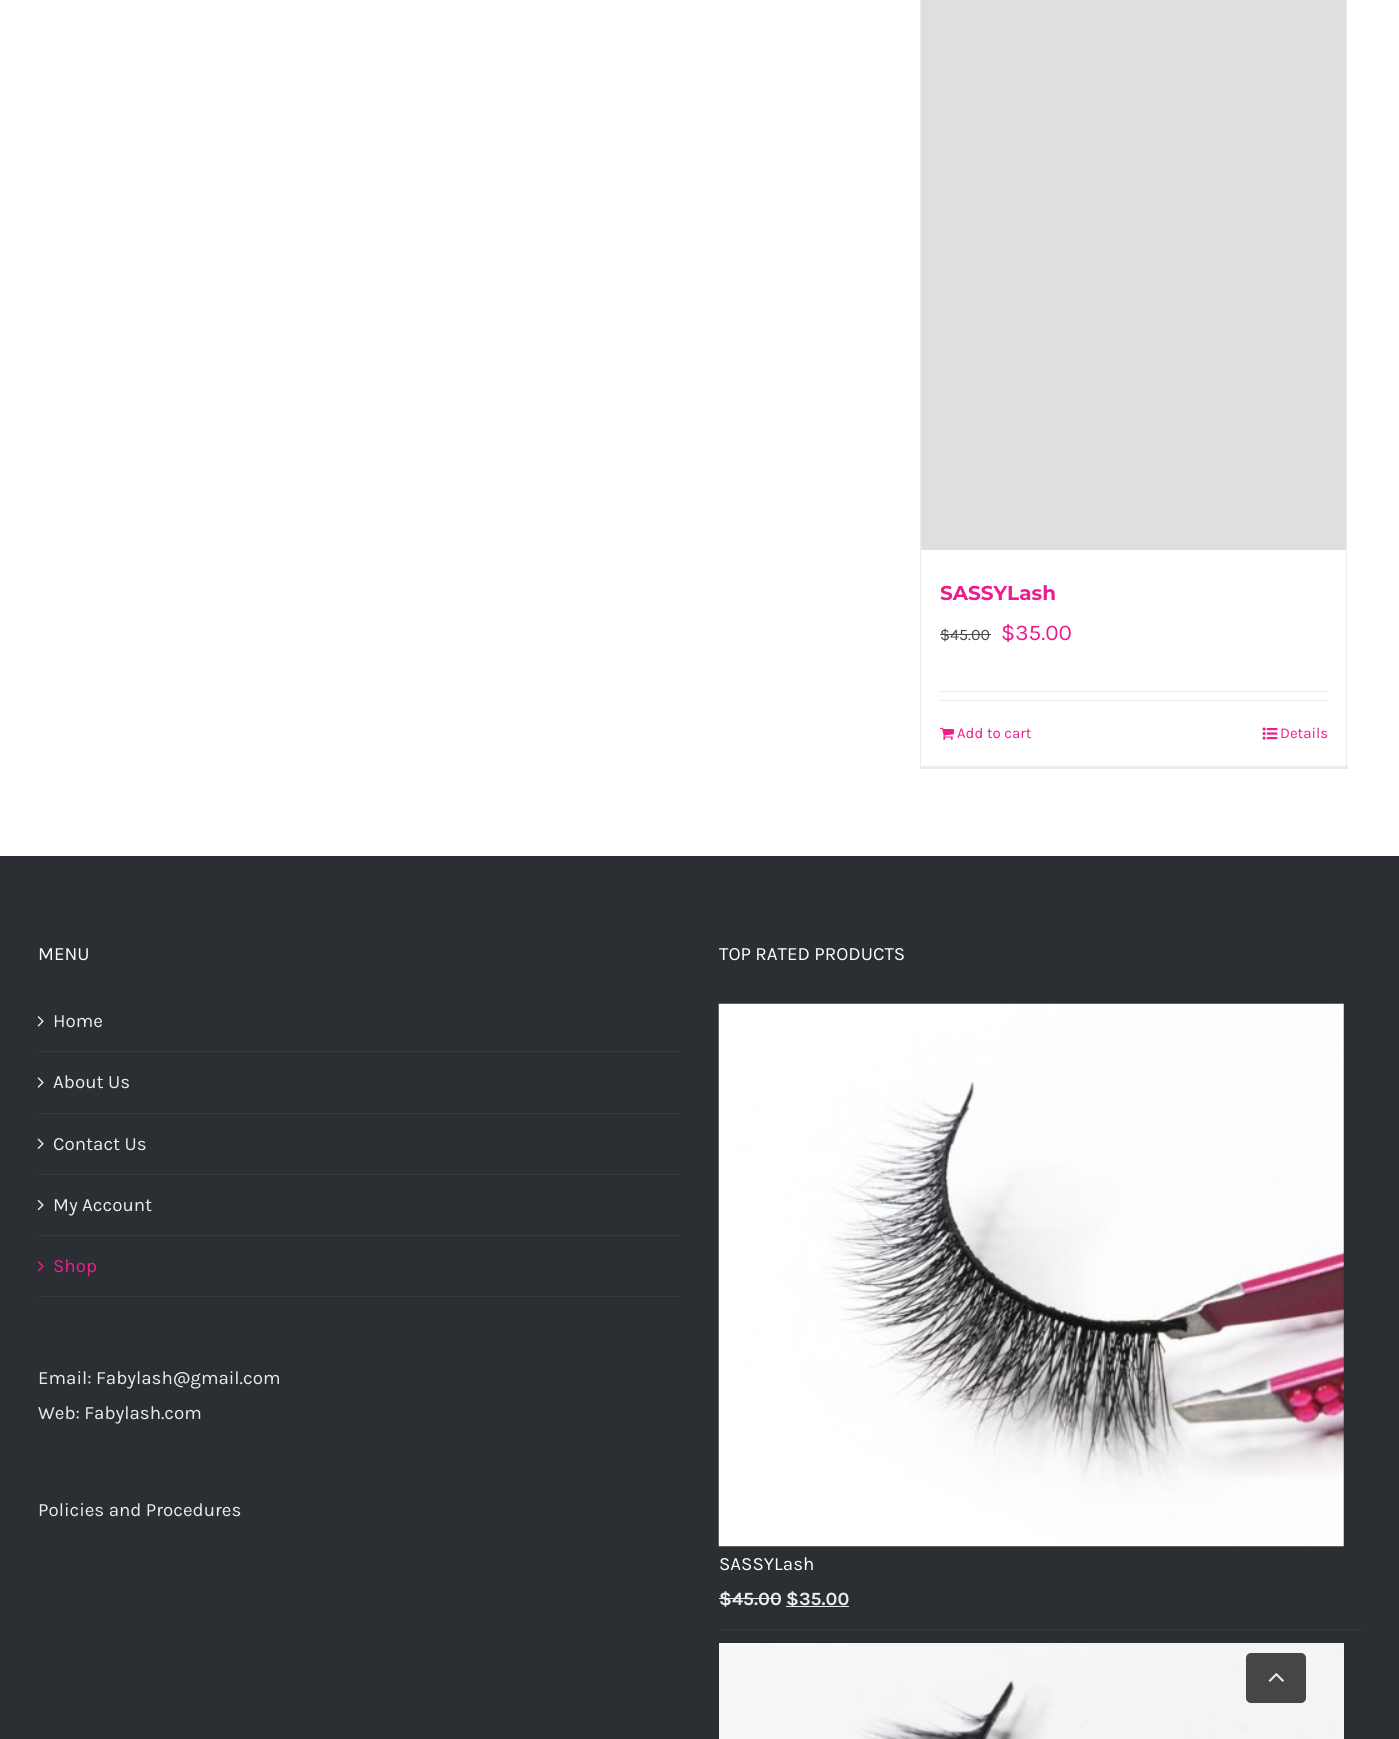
import math
import cairo

surface = cairo.ImageSurface(cairo.FORMAT_RGB24, 1399, 1739)
ctx = cairo.Context(surface)
options = cairo.FontOptions()
options.set_hint_metrics(cairo.HINT_METRICS_OFF)
options.set_hint_style(cairo.HINT_STYLE_NONE)
ctx.set_font_options(options)
ctx.set_miter_limit(4)


def round_rect(x, y, w, h, r):
    ctx.new_sub_path()
    for i, (u, v) in enumerate([(x + w - r, y + h - r), (x + r, y + h - r), (x + r, y + r), (x + w - r, y + r)]):
        ctx.arc(u, v, r, i * math.pi / 2, (i + 1) * math.pi / 2)
    ctx.close_path()


def picture(path, x, y, w, h):
    ctx.save()
    ctx.set_source_surface(cairo.ImageSurface.create_from_png(path), x, y)
    ctx.rectangle(x, y, w, h)
    ctx.fill()
    ctx.restore()


ctx.set_source_rgb(1, 1, 1)
ctx.paint()
ctx.set_source_rgb(0.918, 0.918, 0.918)
ctx.rectangle(1346, 0, 1, 769)
ctx.fill()
ctx.rectangle(920, 766, 428, 3)
ctx.fill()
ctx.rectangle(920, 0, 1, 769)
ctx.fill()
ctx.set_source_rgb(0.878, 0.871, 0.871)
ctx.rectangle(921, 0, 425, 550)
ctx.fill()
ctx.select_font_face("Montserrat Thin")
ctx.set_font_size(20)
ctx.set_source_rgb(0.929, 0.11, 0.565)
ctx.move_to(940, 600)
ctx.show_text("SASSYLash")
ctx.select_font_face("Karla")
ctx.set_font_size(16)
ctx.set_source_rgb(0.286, 0.286, 0.286)
ctx.move_to(940, 640)
ctx.show_text("$45.00")
ctx.rectangle(940, 634, 51, 1)
ctx.fill()
ctx.set_font_size(22.5)
ctx.set_source_rgb(0.929, 0.11, 0.565)
ctx.move_to(1001, 640)
ctx.show_text("$35.00")
ctx.set_source_rgb(0.918, 0.918, 0.918)
ctx.rectangle(940, 691, 388, 1)
ctx.fill()
ctx.rectangle(940, 700, 388, 1)
ctx.fill()
picture("img1.png", 940, 727, 14, 13)
ctx.set_font_size(15)
ctx.set_source_rgb(0.929, 0.11, 0.565)
ctx.move_to(957, 738)
ctx.show_text("Add to cart")
picture("img2.png", 1262, 727, 16, 13)
ctx.move_to(1280, 738)
ctx.show_text("Details")
ctx.set_source_rgb(0.169, 0.18, 0.196)
ctx.rectangle(0, 856, 1399, 883)
ctx.fill()
ctx.set_font_size(18.75)
ctx.set_source_rgb(1, 1, 1)
ctx.move_to(38, 960)
ctx.show_text("MENU")
ctx.set_source_rgb(0.208, 0.22, 0.235)
ctx.rectangle(38, 1051, 643, 1)
ctx.fill()
picture("img3.png", 37, 1016, 7, 11)
ctx.set_source_rgb(0.918, 0.918, 0.918)
ctx.move_to(53, 1027)
ctx.show_text("Home")
ctx.set_source_rgb(0.208, 0.22, 0.235)
ctx.rectangle(38, 1113, 643, 1)
ctx.fill()
picture("img4.png", 37, 1077, 7, 11)
ctx.set_source_rgb(0.918, 0.918, 0.918)
ctx.move_to(53, 1088)
ctx.show_text("About Us")
ctx.set_source_rgb(0.208, 0.22, 0.235)
ctx.rectangle(38, 1174, 643, 1)
ctx.fill()
picture("img5.png", 37, 1138, 7, 11)
ctx.set_source_rgb(0.918, 0.918, 0.918)
ctx.move_to(53, 1150)
ctx.show_text("Contact Us")
ctx.set_source_rgb(0.208, 0.22, 0.235)
ctx.rectangle(38, 1235, 643, 1)
ctx.fill()
picture("img6.png", 37, 1199, 7, 12)
ctx.set_source_rgb(0.918, 0.918, 0.918)
ctx.move_to(53, 1211)
ctx.show_text("My Account")
ctx.set_source_rgb(0.208, 0.22, 0.235)
ctx.rectangle(38, 1296, 643, 1)
ctx.fill()
picture("img7.png", 37, 1261, 7, 11)
ctx.set_source_rgb(0.929, 0.11, 0.565)
ctx.move_to(53, 1272)
ctx.show_text("Shop")
ctx.set_source_rgb(0.918, 0.918, 0.918)
ctx.move_to(38, 1384)
ctx.show_text("Email: Fabylash@gmail.com")
ctx.move_to(38, 1419)
ctx.show_text("Web: Fabylash.com")
ctx.move_to(38, 1516)
ctx.show_text("Policies and Procedures")
ctx.set_source_rgb(1, 1, 1)
ctx.move_to(719, 960)
ctx.show_text("TOP RATED PRODUCTS")
ctx.set_source_rgb(0.208, 0.22, 0.235)
ctx.rectangle(719, 1629, 644, 1)
ctx.fill()
picture("img8.png", 718, 1003, 626, 544)
ctx.set_source_rgb(1, 1, 1)
ctx.move_to(719, 1570)
ctx.show_text("SASSYLash")
ctx.select_font_face("Karla", cairo.FONT_SLANT_NORMAL, cairo.FONT_WEIGHT_BOLD)
ctx.set_source_rgb(0.918, 0.918, 0.918)
ctx.move_to(719, 1605)
ctx.show_text("$45.00")
ctx.rectangle(719, 1598, 62, 1)
ctx.fill()
ctx.rectangle(786, 1606, 63, 1)
ctx.fill()
ctx.move_to(786, 1605)
ctx.show_text("$35.00")
picture("img9.png", 719, 1643, 625, 96)
ctx.set_source_rgba(0.2, 0.2, 0.2, 0.9)
round_rect(1246, 1653, 60, 50, 5)
ctx.fill()
picture("img10.png", 1268, 1673, 16, 9)
surface.write_to_png("page.png")
